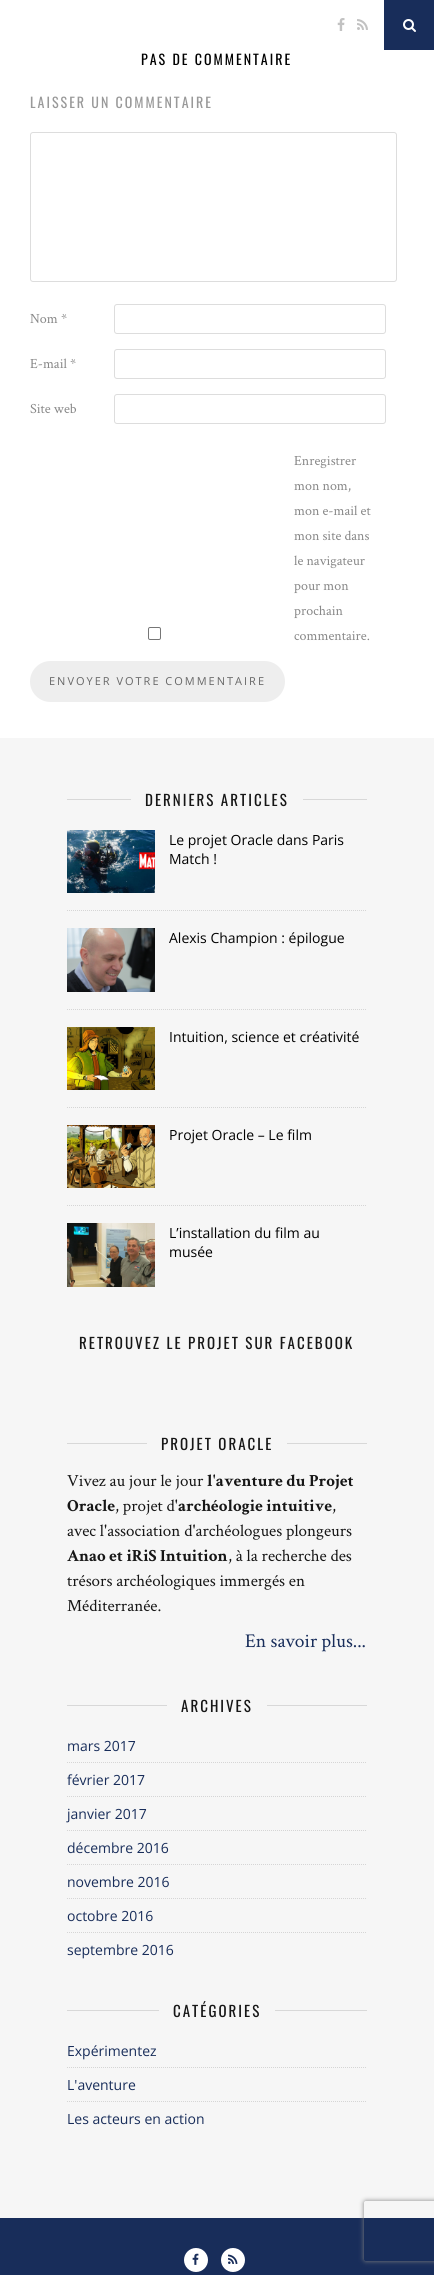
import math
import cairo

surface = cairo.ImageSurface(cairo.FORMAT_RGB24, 434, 2275)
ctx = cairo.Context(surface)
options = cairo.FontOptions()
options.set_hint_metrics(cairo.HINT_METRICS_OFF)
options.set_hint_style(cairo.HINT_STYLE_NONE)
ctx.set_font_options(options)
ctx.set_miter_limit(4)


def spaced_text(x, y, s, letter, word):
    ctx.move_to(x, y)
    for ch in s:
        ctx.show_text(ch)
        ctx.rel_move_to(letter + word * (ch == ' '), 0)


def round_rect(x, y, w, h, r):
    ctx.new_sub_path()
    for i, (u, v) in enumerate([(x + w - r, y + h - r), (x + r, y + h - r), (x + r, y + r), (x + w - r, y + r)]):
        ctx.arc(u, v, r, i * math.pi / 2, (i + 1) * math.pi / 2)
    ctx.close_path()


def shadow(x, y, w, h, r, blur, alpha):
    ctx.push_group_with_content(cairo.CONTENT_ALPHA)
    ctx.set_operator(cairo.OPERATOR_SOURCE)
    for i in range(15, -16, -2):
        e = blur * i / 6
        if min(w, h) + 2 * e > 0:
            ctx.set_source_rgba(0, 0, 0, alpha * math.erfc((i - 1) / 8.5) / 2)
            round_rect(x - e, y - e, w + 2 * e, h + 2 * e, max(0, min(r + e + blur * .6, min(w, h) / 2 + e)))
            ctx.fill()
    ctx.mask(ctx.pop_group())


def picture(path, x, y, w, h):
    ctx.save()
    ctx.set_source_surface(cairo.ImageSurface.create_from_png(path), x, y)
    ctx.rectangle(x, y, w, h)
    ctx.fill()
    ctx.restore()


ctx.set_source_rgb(0.961, 0.961, 0.961)
ctx.paint()
ctx.set_source_rgb(1, 1, 1)
ctx.rectangle(0, 0, 384, 50)
ctx.fill()
picture("img1.png", 337, 18, 8, 13)
picture("img2.png", 357, 19, 11, 11)
ctx.set_source_rgb(0.094, 0.176, 0.353)
ctx.rectangle(384, 0, 50, 50)
ctx.fill()
picture("img3.png", 403, 19, 13, 13)
ctx.set_source_rgb(1, 1, 1)
ctx.rectangle(0, 50, 434, 688)
ctx.fill()
ctx.select_font_face("Oswald")
ctx.set_font_size(14)
ctx.set_source_rgb(0, 0, 0)
spaced_text(141, 65, "PAS DE COMMENTAIRE", 2, 0)
ctx.set_source_rgb(0.6, 0.6, 0.6)
spaced_text(30, 108, "LAISSER UN COMMENTAIRE", 2, 0)
round_rect(30.5, 132.5, 366, 149, 2.5)
ctx.set_source_rgb(0.867, 0.867, 0.867)
ctx.set_line_width(1)
ctx.stroke()
ctx.select_font_face("Crimson Text")
ctx.set_source_rgb(0.533, 0.533, 0.533)
ctx.move_to(30, 323)
ctx.show_text("Nom *")
round_rect(114.5, 304.5, 271, 29, 2.5)
ctx.set_source_rgb(0.867, 0.867, 0.867)
ctx.stroke()
ctx.set_source_rgb(0.533, 0.533, 0.533)
ctx.move_to(30, 368)
ctx.show_text("E-mail *")
round_rect(114.5, 349.5, 271, 29, 2.5)
ctx.set_source_rgb(0.867, 0.867, 0.867)
ctx.stroke()
ctx.set_source_rgb(0.533, 0.533, 0.533)
ctx.move_to(30, 413)
ctx.show_text("Site web")
round_rect(114.5, 394.5, 271, 29, 2.5)
ctx.set_source_rgb(0.867, 0.867, 0.867)
ctx.stroke()
round_rect(148.5, 627.5, 12, 12, 1.5)
ctx.set_source_rgb(0.463, 0.463, 0.463)
ctx.stroke()
ctx.set_source_rgb(0.533, 0.533, 0.533)
ctx.move_to(294, 465)
ctx.show_text("Enregistrer")
ctx.move_to(294, 490)
ctx.show_text("mon nom,")
ctx.move_to(294, 515)
ctx.show_text("mon e-mail et")
ctx.move_to(294, 540)
ctx.show_text("mon site dans")
ctx.move_to(294, 565)
ctx.show_text("le navigateur")
ctx.move_to(294, 590)
ctx.show_text("pour mon")
ctx.move_to(294, 615)
ctx.show_text("prochain")
ctx.move_to(294, 640)
ctx.show_text("commentaire.")
ctx.set_source_rgb(0.933, 0.933, 0.933)
round_rect(30, 661, 255, 41, 20.5)
ctx.fill()
ctx.select_font_face("Open Sans")
ctx.set_font_size(11)
ctx.set_source_rgb(0.4, 0.4, 0.4)
spaced_text(49, 685, "ENVOYER VOTRE COMMENTAIRE", 2, 0)
ctx.set_source_rgb(0.847, 0.847, 0.847)
ctx.rectangle(67, 799, 64, 1)
ctx.fill()
ctx.select_font_face("Oswald")
ctx.set_font_size(15)
ctx.set_source_rgb(0.086, 0.086, 0.086)
spaced_text(145, 806, "DERNIERS ARTICLES", 2, 0)
ctx.set_source_rgb(0.847, 0.847, 0.847)
ctx.rectangle(303, 799, 64, 1)
ctx.fill()
ctx.new_path()
ctx.move_to(67, 910.5)
ctx.line_to(367, 910.5)
ctx.set_source_rgb(0.835, 0.835, 0.835)
ctx.set_dash([1, 1])
ctx.stroke()
picture("img4.png", 67, 830, 88, 63)
ctx.select_font_face("Open Sans")
ctx.set_font_size(14)
ctx.set_source_rgb(0, 0, 0)
ctx.move_to(169, 845)
ctx.show_text("Le projet Oracle dans Paris")
ctx.move_to(169, 864)
ctx.show_text("Match !")
ctx.new_path()
ctx.move_to(67, 1009.5)
ctx.line_to(367, 1009.5)
ctx.set_source_rgb(0.835, 0.835, 0.835)
ctx.stroke()
picture("img5.png", 67, 928, 88, 64)
ctx.set_source_rgb(0, 0, 0)
ctx.move_to(169, 943)
ctx.show_text("Alexis Champion : épilogue")
ctx.new_path()
ctx.move_to(67, 1107.5)
ctx.line_to(367, 1107.5)
ctx.set_source_rgb(0.835, 0.835, 0.835)
ctx.stroke()
picture("img6.png", 67, 1027, 88, 63)
ctx.set_source_rgb(0, 0, 0)
ctx.move_to(169, 1042)
ctx.show_text("Intuition, science et créativité")
ctx.new_path()
ctx.move_to(67, 1205.5)
ctx.line_to(367, 1205.5)
ctx.set_source_rgb(0.835, 0.835, 0.835)
ctx.stroke()
picture("img7.png", 67, 1125, 88, 63)
ctx.set_source_rgb(0, 0, 0)
ctx.move_to(169, 1140)
ctx.show_text("Projet Oracle – Le film")
picture("img8.png", 67, 1223, 88, 64)
ctx.move_to(169, 1238)
ctx.show_text("L’installation du film au")
ctx.move_to(169, 1257)
ctx.show_text("musée")
ctx.select_font_face("Oswald")
ctx.set_font_size(15)
ctx.set_source_rgb(0.086, 0.086, 0.086)
spaced_text(79, 1349, "RETROUVEZ LE PROJET SUR FACEBOOK", 2, 0)
ctx.set_source_rgb(0.847, 0.847, 0.847)
ctx.rectangle(67, 1443, 80, 1)
ctx.fill()
ctx.set_source_rgb(0.086, 0.086, 0.086)
spaced_text(161, 1450, "PROJET ORACLE", 2, 0)
ctx.set_source_rgb(0.847, 0.847, 0.847)
ctx.rectangle(287, 1443, 80, 1)
ctx.fill()
ctx.select_font_face("Crimson Text")
ctx.set_font_size(17)
ctx.set_source_rgb(0.086, 0.086, 0.086)
ctx.move_to(67, 1486)
ctx.show_text("Vivez au jour le jour")
ctx.select_font_face("Crimson Text", cairo.FONT_SLANT_NORMAL, cairo.FONT_WEIGHT_BOLD)
ctx.move_to(207, 1486)
ctx.show_text("l'aventure du Projet")
ctx.move_to(67, 1511)
ctx.show_text("Oracle")
ctx.select_font_face("Crimson Text")
ctx.move_to(115, 1511)
ctx.show_text(", projet d'")
ctx.select_font_face("Crimson Text", cairo.FONT_SLANT_NORMAL, cairo.FONT_WEIGHT_BOLD)
ctx.move_to(178, 1511)
ctx.show_text("archéologie intuitive")
ctx.select_font_face("Crimson Text")
ctx.move_to(332, 1511)
ctx.show_text(",")
ctx.move_to(67, 1536)
ctx.show_text("avec l'association d'archéologues plongeurs")
ctx.select_font_face("Crimson Text", cairo.FONT_SLANT_NORMAL, cairo.FONT_WEIGHT_BOLD)
ctx.move_to(67, 1561)
ctx.show_text("Anao et iRiS Intuition")
ctx.select_font_face("Crimson Text")
ctx.move_to(228, 1561)
ctx.show_text(", à la recherche des")
ctx.move_to(67, 1586)
ctx.show_text("trésors archéologiques immergés en")
ctx.move_to(67, 1611)
ctx.show_text("Méditerranée.")
ctx.set_font_size(19.5)
ctx.set_source_rgb(0.094, 0.176, 0.353)
ctx.move_to(245, 1647)
ctx.show_text("En savoir plus...")
ctx.set_source_rgb(0.847, 0.847, 0.847)
ctx.rectangle(67, 1705, 100, 1)
ctx.fill()
ctx.select_font_face("Oswald")
ctx.set_font_size(15)
ctx.set_source_rgb(0.086, 0.086, 0.086)
spaced_text(181, 1712, "ARCHIVES", 2, 0)
ctx.set_source_rgb(0.847, 0.847, 0.847)
ctx.rectangle(267, 1705, 100, 1)
ctx.fill()
ctx.new_path()
ctx.move_to(67, 1762.5)
ctx.line_to(367, 1762.5)
ctx.set_source_rgb(0.835, 0.835, 0.835)
ctx.stroke()
ctx.select_font_face("Open Sans")
ctx.set_font_size(14)
ctx.set_source_rgb(0.094, 0.176, 0.353)
ctx.move_to(67, 1751)
ctx.show_text("mars 2017")
ctx.new_path()
ctx.move_to(67, 1796.5)
ctx.line_to(367, 1796.5)
ctx.set_source_rgb(0.835, 0.835, 0.835)
ctx.stroke()
ctx.set_source_rgb(0.094, 0.176, 0.353)
ctx.move_to(67, 1785)
ctx.show_text("février 2017")
ctx.new_path()
ctx.move_to(67, 1830.5)
ctx.line_to(367, 1830.5)
ctx.set_source_rgb(0.835, 0.835, 0.835)
ctx.stroke()
ctx.set_source_rgb(0.094, 0.176, 0.353)
ctx.move_to(67, 1819)
ctx.show_text("janvier 2017")
ctx.new_path()
ctx.move_to(67, 1864.5)
ctx.line_to(367, 1864.5)
ctx.set_source_rgb(0.835, 0.835, 0.835)
ctx.stroke()
ctx.set_source_rgb(0.094, 0.176, 0.353)
ctx.move_to(67, 1853)
ctx.show_text("décembre 2016")
ctx.new_path()
ctx.move_to(67, 1898.5)
ctx.line_to(367, 1898.5)
ctx.set_source_rgb(0.835, 0.835, 0.835)
ctx.stroke()
ctx.set_source_rgb(0.094, 0.176, 0.353)
ctx.move_to(67, 1887)
ctx.show_text("novembre 2016")
ctx.new_path()
ctx.move_to(67, 1932.5)
ctx.line_to(367, 1932.5)
ctx.set_source_rgb(0.835, 0.835, 0.835)
ctx.stroke()
ctx.set_source_rgb(0.094, 0.176, 0.353)
ctx.move_to(67, 1921)
ctx.show_text("octobre 2016")
ctx.move_to(67, 1955)
ctx.show_text("septembre 2016")
ctx.set_source_rgb(0.847, 0.847, 0.847)
ctx.rectangle(67, 2010, 92, 1)
ctx.fill()
ctx.select_font_face("Oswald")
ctx.set_font_size(15)
ctx.set_source_rgb(0.086, 0.086, 0.086)
spaced_text(173, 2017, "CATÉGORIES", 2, 0)
ctx.set_source_rgb(0.847, 0.847, 0.847)
ctx.rectangle(275, 2010, 92, 1)
ctx.fill()
ctx.new_path()
ctx.move_to(67, 2067.5)
ctx.line_to(367, 2067.5)
ctx.set_source_rgb(0.835, 0.835, 0.835)
ctx.stroke()
ctx.select_font_face("Open Sans")
ctx.set_font_size(14)
ctx.set_source_rgb(0.094, 0.176, 0.353)
ctx.move_to(67, 2056)
ctx.show_text("Expérimentez")
ctx.new_path()
ctx.move_to(67, 2101.5)
ctx.line_to(367, 2101.5)
ctx.set_source_rgb(0.835, 0.835, 0.835)
ctx.stroke()
ctx.set_source_rgb(0.094, 0.176, 0.353)
ctx.move_to(67, 2090)
ctx.show_text("L'aventure")
ctx.move_to(67, 2124)
ctx.show_text("Les acteurs en action")
ctx.rectangle(0, 2218, 434, 57)
ctx.fill()
ctx.save()
ctx.set_fill_rule(cairo.FILL_RULE_EVEN_ODD)
ctx.new_path()
ctx.move_to(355, 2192)
ctx.line_to(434, 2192)
ctx.line_to(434, 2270)
ctx.line_to(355, 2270)
ctx.close_path()
ctx.move_to(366, 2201)
ctx.line_to(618, 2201)
ctx.curve_to(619, 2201, 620, 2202, 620, 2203)
ctx.line_to(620, 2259)
ctx.curve_to(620, 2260, 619, 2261, 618, 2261)
ctx.line_to(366, 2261)
ctx.curve_to(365, 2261, 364, 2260, 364, 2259)
ctx.line_to(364, 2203)
ctx.curve_to(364, 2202, 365, 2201, 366, 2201)
ctx.close_path()
ctx.clip()
ctx.set_source_rgb(0.502, 0.502, 0.502)
shadow(364, 2201, 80, 60, 2, 2.5, 1)
ctx.restore()
ctx.set_source_rgb(1, 1, 1)
ctx.arc(196, 2260, 12, 0, 2 * math.pi)
ctx.fill()
picture("img9.png", 192, 2253, 7, 12)
ctx.arc(233, 2260, 12, 0, 2 * math.pi)
ctx.fill()
picture("img10.png", 228, 2254, 10, 10)
surface.write_to_png("page.png")
